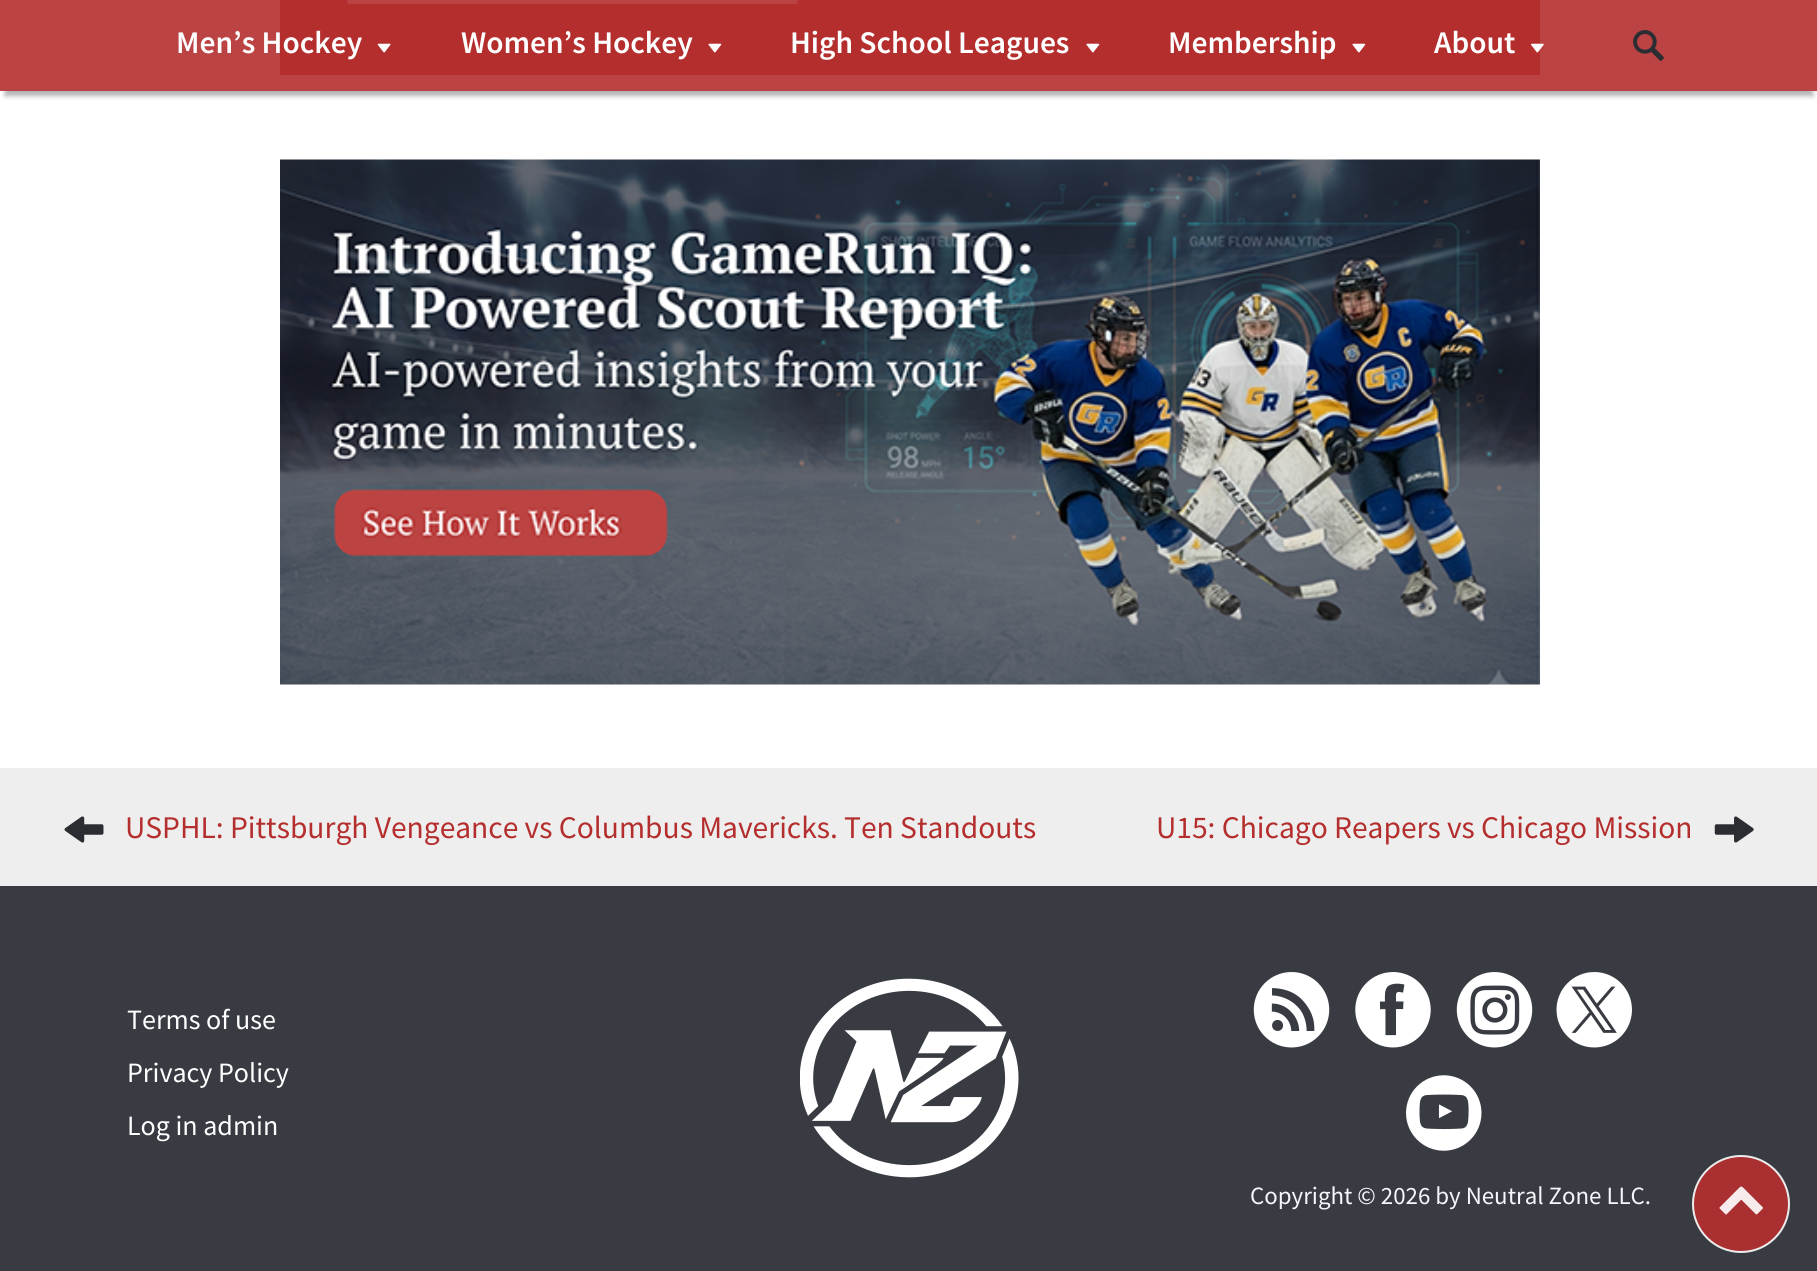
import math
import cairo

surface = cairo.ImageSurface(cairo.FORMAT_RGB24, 1817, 1271)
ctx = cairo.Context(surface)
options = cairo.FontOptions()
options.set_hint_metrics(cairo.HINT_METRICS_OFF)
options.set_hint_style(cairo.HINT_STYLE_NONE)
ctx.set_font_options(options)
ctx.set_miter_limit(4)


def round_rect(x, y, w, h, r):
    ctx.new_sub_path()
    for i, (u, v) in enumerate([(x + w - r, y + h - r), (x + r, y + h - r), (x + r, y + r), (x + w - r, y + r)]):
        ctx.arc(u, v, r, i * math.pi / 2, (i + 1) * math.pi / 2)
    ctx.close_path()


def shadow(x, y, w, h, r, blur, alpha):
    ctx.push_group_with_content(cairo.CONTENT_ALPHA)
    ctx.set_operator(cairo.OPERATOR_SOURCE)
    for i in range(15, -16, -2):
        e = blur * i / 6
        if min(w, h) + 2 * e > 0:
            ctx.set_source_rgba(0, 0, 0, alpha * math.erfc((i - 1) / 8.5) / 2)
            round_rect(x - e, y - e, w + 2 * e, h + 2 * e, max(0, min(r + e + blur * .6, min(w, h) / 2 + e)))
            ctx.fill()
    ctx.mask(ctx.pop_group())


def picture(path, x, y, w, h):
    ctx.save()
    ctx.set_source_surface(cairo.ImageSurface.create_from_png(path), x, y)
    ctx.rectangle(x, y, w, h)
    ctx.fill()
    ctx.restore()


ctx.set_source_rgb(1, 1, 1)
ctx.paint()
ctx.set_source_rgb(0.737, 0.263, 0.263)
ctx.rectangle(0, 0, 1817, 91)
ctx.fill()
ctx.set_source_rgb(0.71, 0.18, 0.18)
ctx.rectangle(280, 0, 1260, 75)
ctx.fill()
ctx.save()
ctx.rectangle(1, 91, 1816, 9)
ctx.clip()
ctx.set_source_rgb(0, 0, 0)
shadow(5, 16, 1808, 80, 0, 2.5, 0.3)
ctx.restore()
ctx.select_font_face("Source Sans Pro SemiBold")
ctx.set_font_size(31.5)
ctx.set_source_rgb(1, 1, 1)
ctx.move_to(176, 53)
ctx.show_text("Men’s Hockey")
picture("img1.png", 377, 43, 14, 10)
ctx.move_to(461, 53)
ctx.show_text("Women’s Hockey")
picture("img2.png", 708, 43, 14, 10)
ctx.move_to(790, 53)
ctx.show_text("High School Leagues")
picture("img2.png", 1086, 43, 14, 10)
ctx.move_to(1168, 53)
ctx.show_text("Membership")
picture("img2.png", 1352, 43, 14, 10)
ctx.move_to(1434, 53)
ctx.show_text("About")
picture("img3.png", 1531, 43, 13, 10)
picture("img4.png", 1633, 30, 31, 31)
round_rect(349, -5, 447, 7, 0.5)
ctx.set_source_rgb(0.737, 0.263, 0.263)
ctx.set_line_width(4)
ctx.stroke()
picture("img5.png", 280, 159, 1260, 526)
ctx.set_source_rgb(0.933, 0.933, 0.933)
ctx.rectangle(0, 768, 1817, 118)
ctx.fill()
picture("img6.png", 64, 816, 40, 27)
ctx.select_font_face("Source Sans Pro")
ctx.set_source_rgb(0.71, 0.18, 0.18)
ctx.move_to(125, 838)
ctx.show_text("USPHL: Pittsburgh Vengeance vs Columbus Mavericks. Ten Standouts")
ctx.move_to(1156, 838)
ctx.show_text("U15: Chicago Reapers vs Chicago Mission")
picture("img7.png", 1714, 816, 40, 27)
ctx.set_source_rgb(0.22, 0.231, 0.259)
ctx.rectangle(0, 886, 1817, 385)
ctx.fill()
ctx.set_font_size(28)
ctx.set_source_rgb(1, 1, 1)
ctx.move_to(127, 1029)
ctx.show_text("Terms of use")
ctx.move_to(127, 1082)
ctx.show_text("Privacy Policy")
ctx.move_to(127, 1135)
ctx.show_text("Log in admin")
picture("img8.png", 800, 978, 219, 200)
picture("img9.png", 1253, 972, 77, 76)
picture("img10.png", 1355, 972, 76, 76)
picture("img11.png", 1456, 972, 77, 76)
picture("img12.png", 1556, 972, 76, 76)
picture("img13.png", 1406, 1075, 76, 76)
ctx.set_font_size(24.9)
ctx.set_source_rgb(0.957, 0.965, 0.984)
ctx.move_to(1250, 1204)
ctx.show_text("Copyright © 2026 by Neutral Zone LLC.")
ctx.set_source_rgb(0.663, 0.184, 0.188)
ctx.new_path()
ctx.arc(1741, 1204, 48, 0, 2 * math.pi)
ctx.fill_preserve()
ctx.set_source_rgb(0.922, 0.922, 0.925)
ctx.set_line_width(2)
ctx.stroke()
picture("img14.png", 1719, 1186, 44, 29)
surface.write_to_png("page.png")
